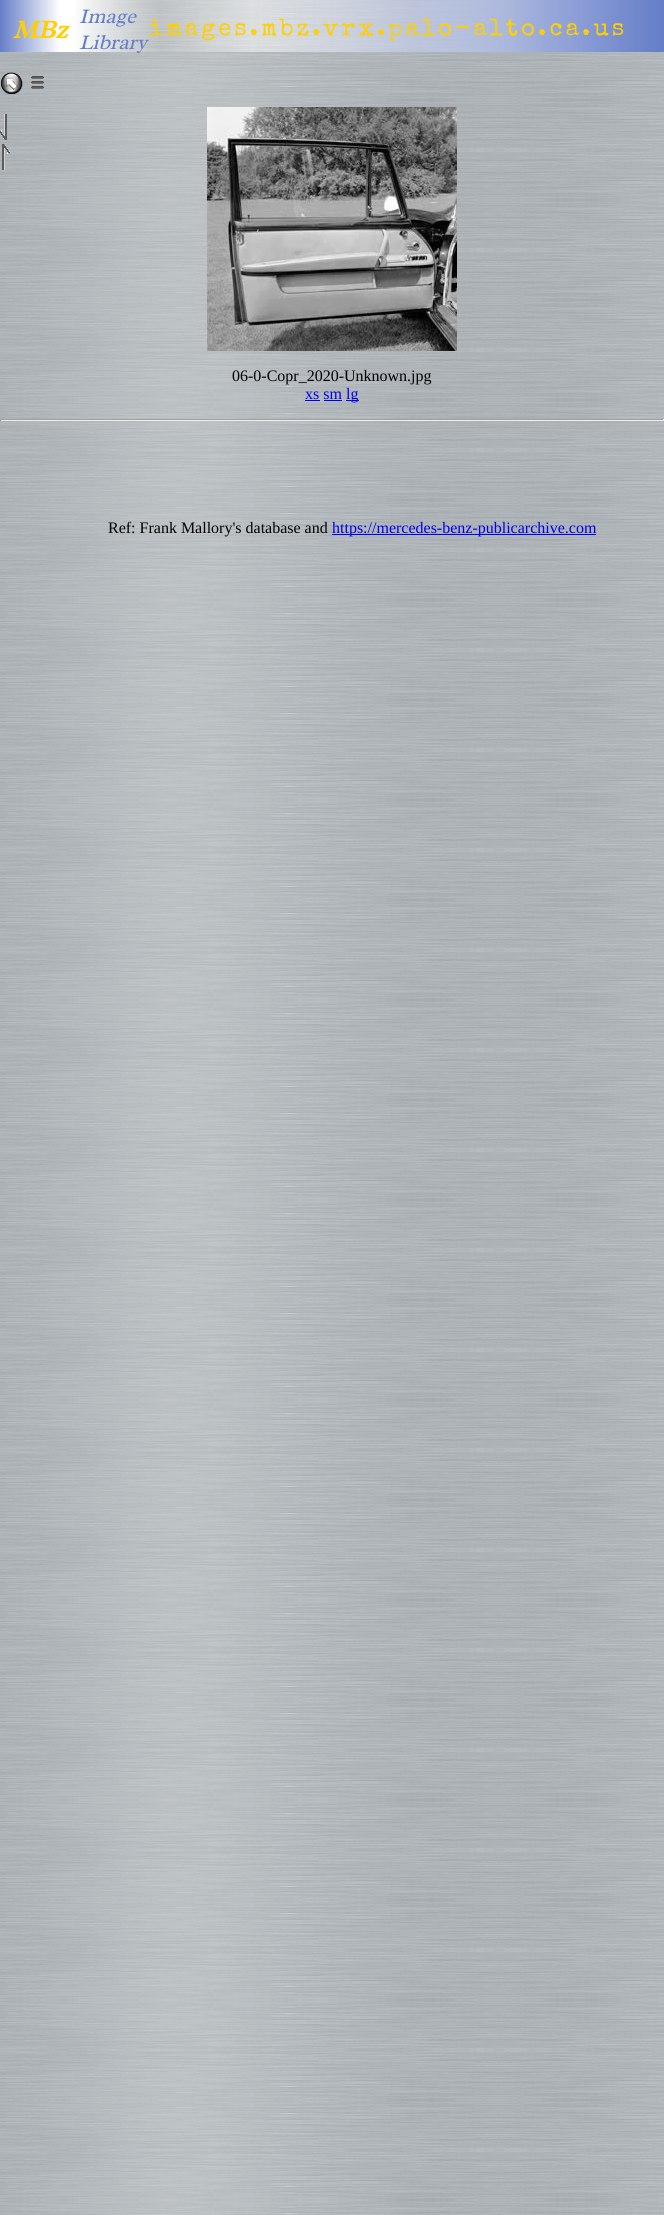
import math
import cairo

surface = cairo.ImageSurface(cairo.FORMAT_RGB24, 664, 2215)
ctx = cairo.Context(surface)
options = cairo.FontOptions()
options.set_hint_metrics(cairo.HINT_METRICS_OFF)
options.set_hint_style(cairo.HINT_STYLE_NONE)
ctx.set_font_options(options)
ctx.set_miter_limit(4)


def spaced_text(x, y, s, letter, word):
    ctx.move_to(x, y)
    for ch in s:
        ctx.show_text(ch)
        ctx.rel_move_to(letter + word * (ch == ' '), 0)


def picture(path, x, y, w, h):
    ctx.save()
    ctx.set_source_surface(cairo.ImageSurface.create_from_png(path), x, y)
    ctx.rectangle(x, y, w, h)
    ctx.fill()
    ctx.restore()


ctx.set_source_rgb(1, 1, 1)
ctx.paint()
picture("img1.png", 0, 0, 664, 2215)
ctx.select_font_face("Radley", cairo.FONT_SLANT_ITALIC, cairo.FONT_WEIGHT_BOLD)
ctx.set_font_size(26)
ctx.set_source_rgb(1, 0.812, 0)
ctx.move_to(13, 38)
ctx.show_text("MBz")
ctx.select_font_face("Radley", cairo.FONT_SLANT_ITALIC)
ctx.set_font_size(21)
ctx.set_source_rgb(0.396, 0.494, 0.78)
ctx.move_to(79, 23)
ctx.show_text("Image")
ctx.move_to(79, 49)
ctx.show_text("Library")
ctx.select_font_face("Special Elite")
ctx.set_font_size(24)
ctx.set_source_rgb(1, 0.812, 0)
spaced_text(149, 35, "images.mbz.vrx.palo-alto.ca.us", 3, 0)
picture("img2.png", 1, 72, 22, 22)
picture("img3.png", 31, 76, 13, 13)
picture("img4.png", 0, 114, 7, 26)
picture("img5.png", 2, 144, 8, 26)
picture("img6.png", 207, 107, 250, 244)
ctx.select_font_face("Liberation Serif")
ctx.set_font_size(16)
ctx.set_source_rgb(0, 0, 0)
ctx.move_to(232, 381)
ctx.show_text("06-0-Copr_2020-Unknown.jpg")
ctx.set_source_rgb(0, 0, 0.933)
ctx.move_to(305, 399)
ctx.show_text("xs sm")
ctx.rectangle(305, 400, 15, 1)
ctx.fill()
ctx.rectangle(346, 400, 13, 1)
ctx.fill()
ctx.move_to(346, 399)
ctx.show_text("lg")
ctx.rectangle(324, 400, 18, 1)
ctx.fill()
ctx.set_source_rgb(0.624, 0.624, 0.624)
ctx.rectangle(0, 419, 664, 1)
ctx.fill()
ctx.set_source_rgb(0.933, 0.933, 0.933)
ctx.rectangle(663, 419, 1, 2)
ctx.fill()
ctx.rectangle(0, 420, 664, 1)
ctx.fill()
ctx.set_source_rgb(0.624, 0.624, 0.624)
ctx.rectangle(0, 419, 1, 2)
ctx.fill()
ctx.set_source_rgb(0, 0, 0)
ctx.move_to(108, 533)
ctx.show_text("Ref: Frank Mallory's database and")
ctx.set_source_rgb(0, 0, 0.933)
ctx.rectangle(332, 534, 264, 1)
ctx.fill()
ctx.move_to(332, 533)
ctx.show_text("https://mercedes-benz-publicarchive.com")
surface.write_to_png("page.png")
